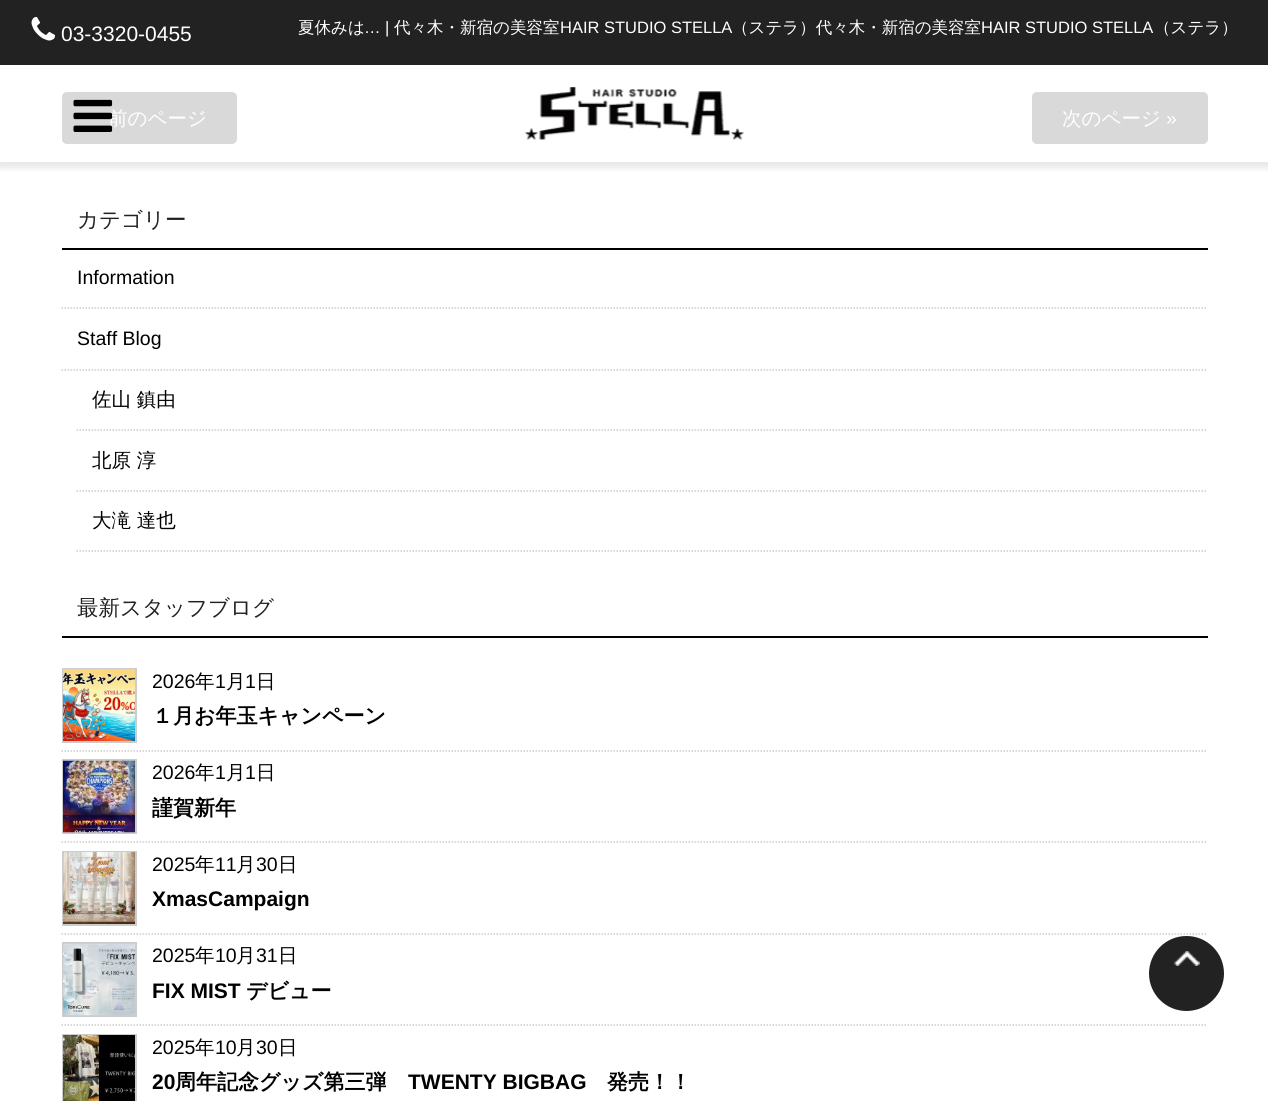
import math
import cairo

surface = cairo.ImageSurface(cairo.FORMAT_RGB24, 1268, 1101)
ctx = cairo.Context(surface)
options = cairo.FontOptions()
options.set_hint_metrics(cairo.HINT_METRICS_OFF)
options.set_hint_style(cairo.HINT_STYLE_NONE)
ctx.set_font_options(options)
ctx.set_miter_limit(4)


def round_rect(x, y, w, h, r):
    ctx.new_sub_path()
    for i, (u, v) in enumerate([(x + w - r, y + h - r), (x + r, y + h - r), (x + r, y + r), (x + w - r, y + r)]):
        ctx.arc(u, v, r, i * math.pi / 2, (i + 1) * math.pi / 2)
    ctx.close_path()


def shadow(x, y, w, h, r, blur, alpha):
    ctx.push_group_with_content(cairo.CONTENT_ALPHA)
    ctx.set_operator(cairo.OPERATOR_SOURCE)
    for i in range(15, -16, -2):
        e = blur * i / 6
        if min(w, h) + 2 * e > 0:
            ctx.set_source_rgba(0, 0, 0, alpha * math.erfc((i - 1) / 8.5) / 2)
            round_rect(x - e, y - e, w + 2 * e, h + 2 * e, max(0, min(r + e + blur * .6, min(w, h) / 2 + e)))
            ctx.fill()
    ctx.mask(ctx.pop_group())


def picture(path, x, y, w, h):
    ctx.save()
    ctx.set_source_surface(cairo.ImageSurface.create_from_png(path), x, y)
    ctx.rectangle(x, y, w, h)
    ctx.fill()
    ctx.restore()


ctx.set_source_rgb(1, 1, 1)
ctx.paint()
ctx.set_source_rgb(0.851, 0.851, 0.851)
round_rect(62, 92, 175, 52, 5)
ctx.fill()
round_rect(1032, 92, 176, 52, 5)
ctx.fill()
ctx.save()
ctx.rectangle(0, 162, 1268, 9)
ctx.clip()
ctx.set_source_rgb(0, 0, 0)
shadow(-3, 0, 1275, 168, 0, 4, 0.1)
ctx.restore()
ctx.set_source_rgb(0.133, 0.133, 0.133)
ctx.rectangle(0, 0, 1268, 65)
ctx.fill()
picture("img1.png", 31, 16, 25, 25)
ctx.select_font_face("Liberation Sans")
ctx.set_font_size(21)
ctx.set_source_rgb(1, 1, 1)
ctx.move_to(61, 41)
ctx.show_text("03-3320-0455")
ctx.select_font_face("WenQuanYi Zen Hei Medium")
ctx.set_font_size(16.5)
ctx.move_to(298, 33)
ctx.show_text("夏休みは")
ctx.select_font_face("Liberation Sans")
ctx.move_to(364, 33)
ctx.show_text("… |")
ctx.select_font_face("WenQuanYi Zen Hei Medium")
ctx.move_to(394, 33)
ctx.show_text("代々木・新宿の美容室")
ctx.select_font_face("Liberation Sans")
ctx.move_to(560, 33)
ctx.show_text("HAIR STUDIO STELLA")
ctx.select_font_face("WenQuanYi Zen Hei Medium")
ctx.move_to(732, 33)
ctx.show_text("（ステラ）代々木・新宿の美容室")
ctx.select_font_face("Liberation Sans")
ctx.move_to(981, 33)
ctx.show_text("HAIR STUDIO STELLA")
ctx.select_font_face("WenQuanYi Zen Hei Medium")
ctx.move_to(1154, 33)
ctx.show_text("（ステラ）")
ctx.set_font_size(19.5)
ctx.move_to(108, 125)
ctx.show_text("前のページ")
picture("img2.png", 73, 99, 40, 33)
picture("img3.png", 524, 87, 221, 53)
ctx.move_to(1062, 125)
ctx.show_text("次のページ")
ctx.select_font_face("Liberation Sans")
ctx.move_to(1166, 125)
ctx.show_text("»")
ctx.set_source_rgb(0, 0, 0)
ctx.rectangle(62, 248, 1146, 2)
ctx.fill()
ctx.select_font_face("WenQuanYi Zen Hei Medium")
ctx.set_font_size(21.5)
ctx.set_source_rgb(0.133, 0.133, 0.133)
ctx.move_to(77, 227)
ctx.show_text("カテゴリー")
ctx.new_path()
ctx.move_to(61.5, 308)
ctx.line_to(1207.5, 308)
ctx.set_source_rgb(0.8, 0.8, 0.8)
ctx.set_line_width(1.5)
ctx.set_dash([1.5, 1.5])
ctx.stroke()
ctx.select_font_face("Liberation Sans")
ctx.set_font_size(19.5)
ctx.set_source_rgb(0, 0, 0)
ctx.move_to(77, 284)
ctx.show_text("Information")
ctx.new_path()
ctx.move_to(61.5, 370)
ctx.line_to(1207.5, 370)
ctx.set_source_rgb(0.8, 0.8, 0.8)
ctx.stroke()
ctx.set_source_rgb(0, 0, 0)
ctx.move_to(77, 345)
ctx.show_text("Staff Blog")
ctx.new_path()
ctx.move_to(76.5, 430)
ctx.line_to(1207.5, 430)
ctx.set_source_rgb(0.8, 0.8, 0.8)
ctx.stroke()
ctx.select_font_face("WenQuanYi Zen Hei Medium")
ctx.set_source_rgb(0, 0, 0)
ctx.move_to(92, 406)
ctx.show_text("佐山 鎮由")
ctx.new_path()
ctx.move_to(76.5, 491)
ctx.line_to(1207.5, 491)
ctx.set_source_rgb(0.8, 0.8, 0.8)
ctx.stroke()
ctx.set_source_rgb(0, 0, 0)
ctx.move_to(92, 467)
ctx.show_text("北原 淳")
ctx.new_path()
ctx.move_to(76.5, 551)
ctx.line_to(1207.5, 551)
ctx.set_source_rgb(0.8, 0.8, 0.8)
ctx.stroke()
ctx.set_source_rgb(0, 0, 0)
ctx.move_to(92, 527)
ctx.show_text("大滝 達也")
ctx.rectangle(62, 636, 1146, 2)
ctx.fill()
ctx.set_font_size(21.5)
ctx.set_source_rgb(0.133, 0.133, 0.133)
ctx.move_to(77, 615)
ctx.show_text("最新スタッフブログ")
ctx.new_path()
ctx.move_to(61.5, 751)
ctx.line_to(1207.5, 751)
ctx.set_source_rgb(0.8, 0.8, 0.8)
ctx.stroke()
ctx.rectangle(63, 669, 73, 73)
ctx.set_line_width(2)
ctx.set_dash([])
ctx.stroke()
picture("img4.png", 63, 669, 72, 72)
ctx.select_font_face("Liberation Sans")
ctx.set_font_size(19.5)
ctx.set_source_rgb(0, 0, 0)
ctx.move_to(152, 688)
ctx.show_text("2026")
ctx.select_font_face("WenQuanYi Zen Hei Medium")
ctx.move_to(195, 688)
ctx.show_text("年")
ctx.select_font_face("Liberation Sans")
ctx.move_to(215, 688)
ctx.show_text("1")
ctx.select_font_face("WenQuanYi Zen Hei Medium")
ctx.move_to(226, 688)
ctx.show_text("月")
ctx.select_font_face("Liberation Sans")
ctx.move_to(245, 688)
ctx.show_text("1")
ctx.select_font_face("WenQuanYi Zen Hei Medium")
ctx.move_to(256, 688)
ctx.show_text("日")
ctx.select_font_face("WenQuanYi Zen Hei", cairo.FONT_SLANT_NORMAL, cairo.FONT_WEIGHT_BOLD)
ctx.set_font_size(21)
ctx.move_to(152, 723)
ctx.show_text("１月お年玉キャンペーン")
ctx.new_path()
ctx.move_to(61.5, 842)
ctx.line_to(1207.5, 842)
ctx.set_source_rgb(0.8, 0.8, 0.8)
ctx.set_line_width(1.5)
ctx.set_dash([1.5, 1.5])
ctx.stroke()
ctx.rectangle(63, 760, 73, 73)
ctx.set_line_width(2)
ctx.set_dash([])
ctx.stroke()
picture("img5.png", 63, 760, 72, 73)
ctx.select_font_face("Liberation Sans")
ctx.set_font_size(19.5)
ctx.set_source_rgb(0, 0, 0)
ctx.move_to(152, 779)
ctx.show_text("2026")
ctx.select_font_face("WenQuanYi Zen Hei Medium")
ctx.move_to(195, 779)
ctx.show_text("年")
ctx.select_font_face("Liberation Sans")
ctx.move_to(215, 779)
ctx.show_text("1")
ctx.select_font_face("WenQuanYi Zen Hei Medium")
ctx.move_to(226, 779)
ctx.show_text("月")
ctx.select_font_face("Liberation Sans")
ctx.move_to(245, 779)
ctx.show_text("1")
ctx.select_font_face("WenQuanYi Zen Hei Medium")
ctx.move_to(256, 779)
ctx.show_text("日")
ctx.select_font_face("WenQuanYi Zen Hei", cairo.FONT_SLANT_NORMAL, cairo.FONT_WEIGHT_BOLD)
ctx.set_font_size(21)
ctx.move_to(152, 815)
ctx.show_text("謹賀新年")
ctx.new_path()
ctx.move_to(61.5, 934)
ctx.line_to(1207.5, 934)
ctx.set_source_rgb(0.8, 0.8, 0.8)
ctx.set_line_width(1.5)
ctx.set_dash([1.5, 1.5])
ctx.stroke()
ctx.rectangle(63, 852, 73, 73)
ctx.set_line_width(2)
ctx.set_dash([])
ctx.stroke()
picture("img6.png", 63, 852, 72, 72)
ctx.select_font_face("Liberation Sans")
ctx.set_font_size(19.5)
ctx.set_source_rgb(0, 0, 0)
ctx.move_to(152, 871)
ctx.show_text("2025")
ctx.select_font_face("WenQuanYi Zen Hei Medium")
ctx.move_to(195, 871)
ctx.show_text("年")
ctx.select_font_face("Liberation Sans")
ctx.move_to(215, 871)
ctx.show_text("11")
ctx.select_font_face("WenQuanYi Zen Hei Medium")
ctx.move_to(236, 871)
ctx.show_text("月")
ctx.select_font_face("Liberation Sans")
ctx.move_to(256, 871)
ctx.show_text("30")
ctx.select_font_face("WenQuanYi Zen Hei Medium")
ctx.move_to(278, 871)
ctx.show_text("日")
ctx.select_font_face("Liberation Sans", cairo.FONT_SLANT_NORMAL, cairo.FONT_WEIGHT_BOLD)
ctx.set_font_size(21)
ctx.move_to(152, 906)
ctx.show_text("XmasCampaign")
ctx.new_path()
ctx.move_to(61.5, 1025)
ctx.line_to(1207.5, 1025)
ctx.set_source_rgb(0.8, 0.8, 0.8)
ctx.set_line_width(1.5)
ctx.set_dash([1.5, 1.5])
ctx.stroke()
ctx.rectangle(63, 943, 73, 73)
ctx.set_line_width(2)
ctx.set_dash([])
ctx.stroke()
picture("img7.png", 63, 943, 72, 73)
ctx.select_font_face("Liberation Sans")
ctx.set_font_size(19.5)
ctx.set_source_rgb(0, 0, 0)
ctx.move_to(152, 962)
ctx.show_text("2025")
ctx.select_font_face("WenQuanYi Zen Hei Medium")
ctx.move_to(195, 962)
ctx.show_text("年")
ctx.select_font_face("Liberation Sans")
ctx.move_to(215, 962)
ctx.show_text("10")
ctx.select_font_face("WenQuanYi Zen Hei Medium")
ctx.move_to(236, 962)
ctx.show_text("月")
ctx.select_font_face("Liberation Sans")
ctx.move_to(256, 962)
ctx.show_text("31")
ctx.select_font_face("WenQuanYi Zen Hei Medium")
ctx.move_to(278, 962)
ctx.show_text("日")
ctx.select_font_face("Liberation Sans", cairo.FONT_SLANT_NORMAL, cairo.FONT_WEIGHT_BOLD)
ctx.set_font_size(21)
ctx.move_to(152, 998)
ctx.show_text("FIX MIST")
ctx.select_font_face("WenQuanYi Zen Hei", cairo.FONT_SLANT_NORMAL, cairo.FONT_WEIGHT_BOLD)
ctx.move_to(246, 998)
ctx.show_text("デビュー")
ctx.rectangle(63, 1035, 73, 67)
ctx.set_source_rgb(0.8, 0.8, 0.8)
ctx.stroke()
picture("img8.png", 63, 1035, 72, 66)
ctx.select_font_face("Liberation Sans")
ctx.set_font_size(19.5)
ctx.set_source_rgb(0, 0, 0)
ctx.move_to(152, 1054)
ctx.show_text("2025")
ctx.select_font_face("WenQuanYi Zen Hei Medium")
ctx.move_to(195, 1054)
ctx.show_text("年")
ctx.select_font_face("Liberation Sans")
ctx.move_to(215, 1054)
ctx.show_text("10")
ctx.select_font_face("WenQuanYi Zen Hei Medium")
ctx.move_to(236, 1054)
ctx.show_text("月")
ctx.select_font_face("Liberation Sans")
ctx.move_to(256, 1054)
ctx.show_text("30")
ctx.select_font_face("WenQuanYi Zen Hei Medium")
ctx.move_to(278, 1054)
ctx.show_text("日")
ctx.select_font_face("Liberation Sans", cairo.FONT_SLANT_NORMAL, cairo.FONT_WEIGHT_BOLD)
ctx.set_font_size(21)
ctx.move_to(152, 1089)
ctx.show_text("20")
ctx.select_font_face("WenQuanYi Zen Hei", cairo.FONT_SLANT_NORMAL, cairo.FONT_WEIGHT_BOLD)
ctx.move_to(175, 1089)
ctx.show_text("周年記念グッズ第三弾")
ctx.select_font_face("Liberation Sans", cairo.FONT_SLANT_NORMAL, cairo.FONT_WEIGHT_BOLD)
ctx.move_to(408, 1089)
ctx.show_text("TWENTY BIGBAG")
ctx.select_font_face("WenQuanYi Zen Hei", cairo.FONT_SLANT_NORMAL, cairo.FONT_WEIGHT_BOLD)
ctx.move_to(607, 1089)
ctx.show_text("発売！！")
ctx.set_source_rgb(0.133, 0.133, 0.133)
ctx.new_path()
ctx.arc(1186.5, 973.5, 37.5, 0, 2 * math.pi)
ctx.fill()
picture("img9.png", 1174, 951, 26, 15)
surface.write_to_png("page.png")
